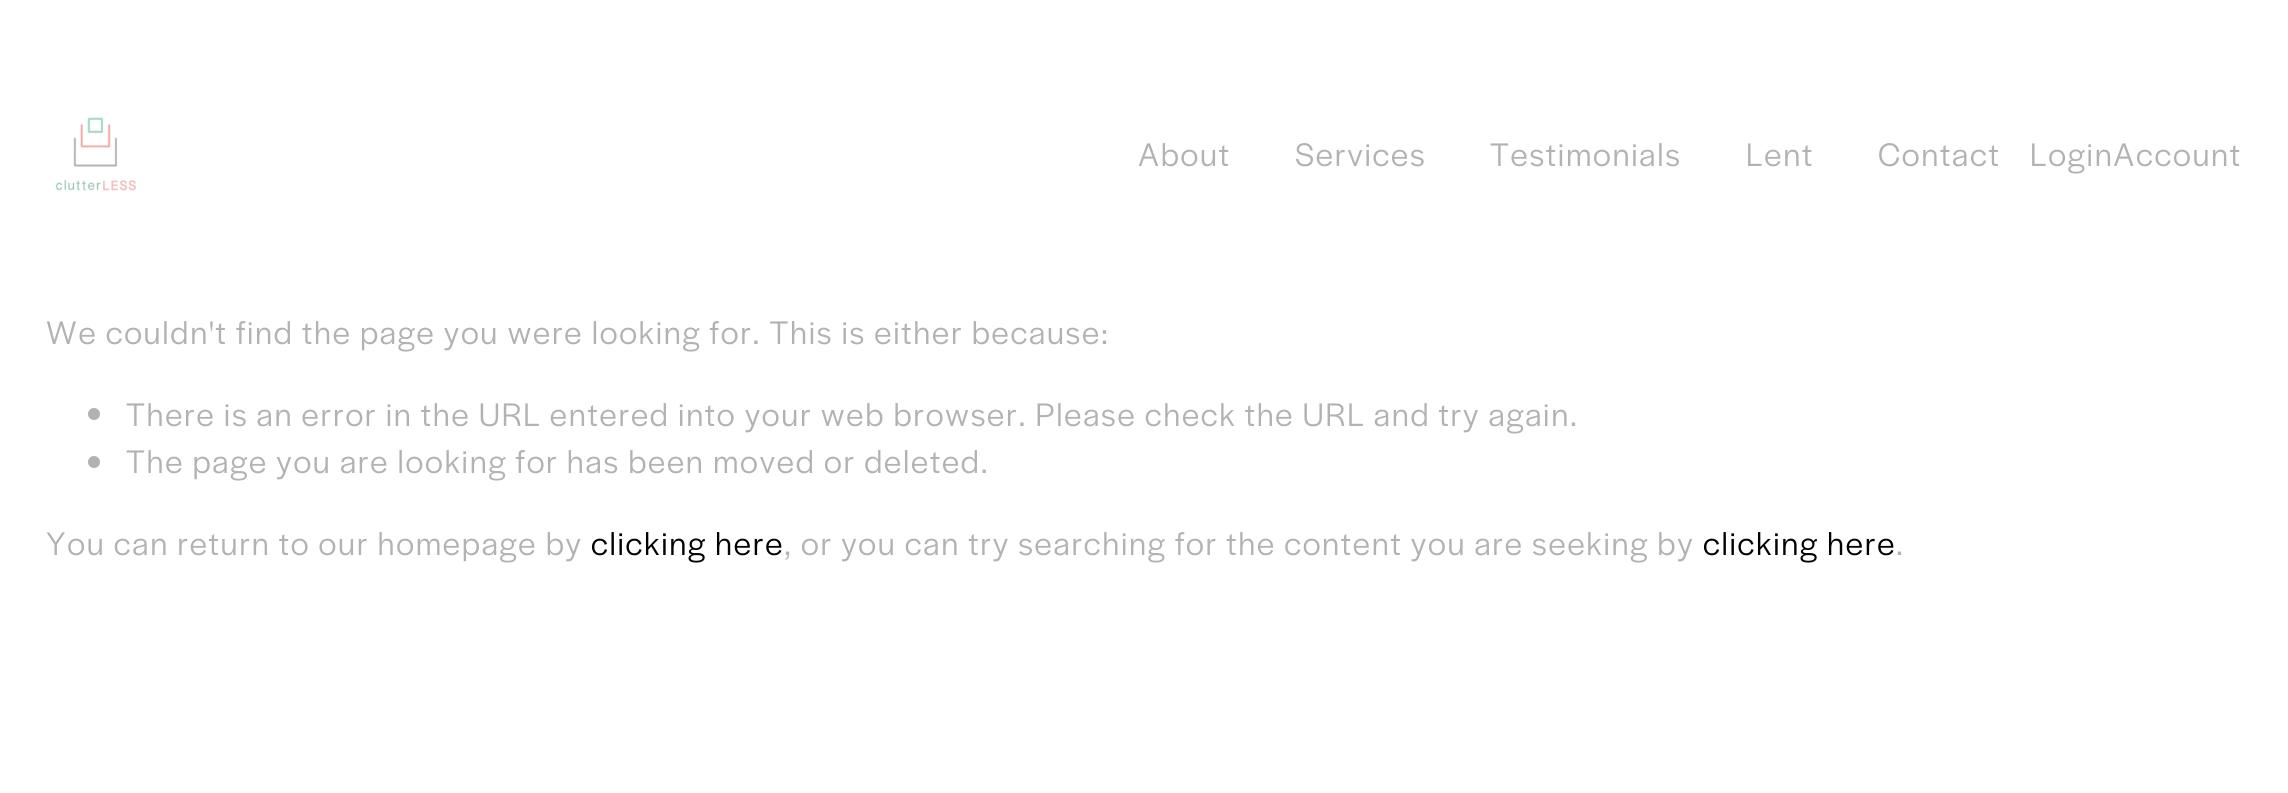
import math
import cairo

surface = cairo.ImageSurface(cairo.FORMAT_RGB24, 2288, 793)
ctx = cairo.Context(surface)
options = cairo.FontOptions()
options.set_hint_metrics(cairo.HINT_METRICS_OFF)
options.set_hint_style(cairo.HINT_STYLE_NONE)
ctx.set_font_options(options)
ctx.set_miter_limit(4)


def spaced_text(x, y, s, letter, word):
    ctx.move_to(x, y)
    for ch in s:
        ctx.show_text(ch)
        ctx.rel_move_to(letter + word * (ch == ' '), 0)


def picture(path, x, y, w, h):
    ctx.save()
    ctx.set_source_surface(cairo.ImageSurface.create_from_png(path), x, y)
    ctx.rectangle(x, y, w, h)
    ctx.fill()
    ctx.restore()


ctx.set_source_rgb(1, 1, 1)
ctx.paint()
picture("img1.png", 55, 117, 82, 74)
ctx.select_font_face("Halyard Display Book")
ctx.set_font_size(34)
ctx.set_source_rgb(0.702, 0.694, 0.694)
spaced_text(1138, 166, "About", 1.7, 0)
spaced_text(1295, 166, "Services", 1.7, 0)
spaced_text(1490, 166, "Testimonials", 1.7, 0)
spaced_text(1746, 166, "Lent", 1.7, 0)
spaced_text(1878, 166, "Contact", 1.7, 0)
spaced_text(2030, 166, "LoginAccount", 1.7, 0)
spaced_text(46, 344, "We couldn't find the page you were looking for. This is either because:", 1.7, 0)
ctx.new_path()
ctx.arc(94, 414, 6, 0, 2 * math.pi)
ctx.fill()
spaced_text(126, 426, "There is an error in the URL entered into your web browser. Please check the URL and try again.", 1.7, 0)
ctx.new_path()
ctx.arc(94, 462, 6, 0, 2 * math.pi)
ctx.fill()
spaced_text(126, 473, "The page you are looking for has been moved or deleted.", 1.7, 0)
spaced_text(46, 555, "You can return to our homepage by", 1.7, 0)
ctx.set_source_rgb(0, 0, 0)
spaced_text(591, 555, "clicking here", 1.7, 0)
ctx.set_source_rgb(0.702, 0.694, 0.694)
spaced_text(784, 555, ", or you can try searching for the content you are seeking by", 1.7, 0)
ctx.set_source_rgb(0, 0, 0)
spaced_text(1703, 555, "clicking here", 1.7, 0)
ctx.set_source_rgb(0.702, 0.694, 0.694)
spaced_text(1896, 555, ".", 1.7, 0)
surface.write_to_png("page.png")
